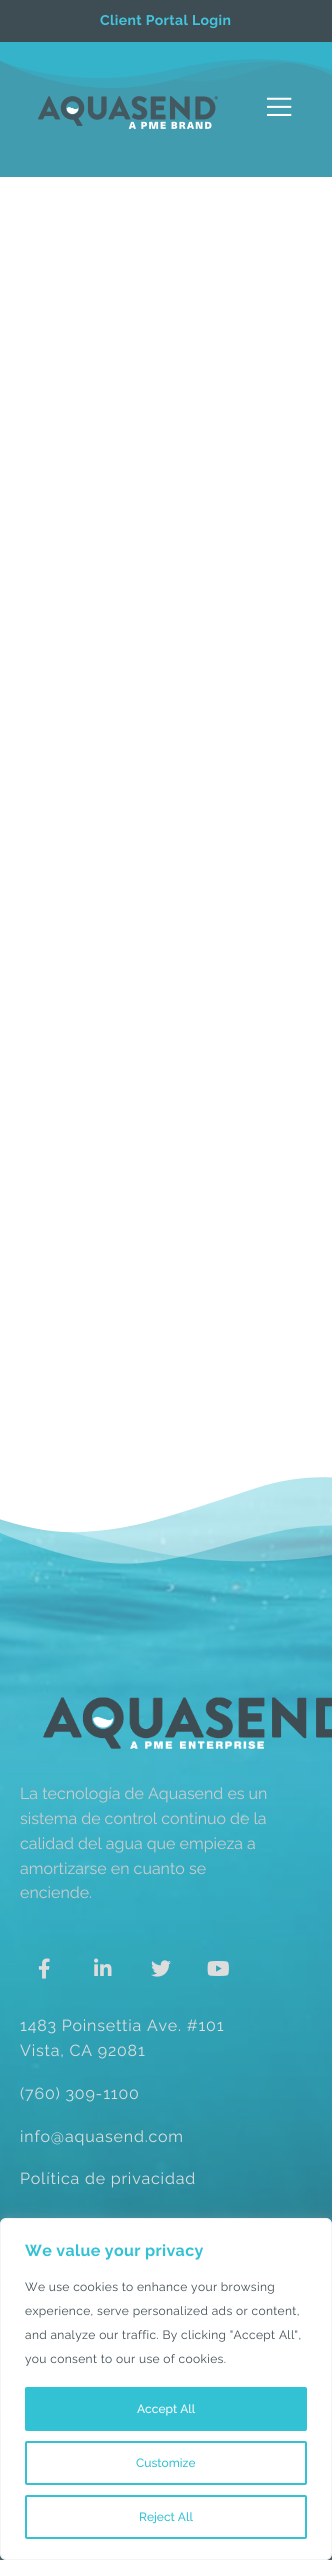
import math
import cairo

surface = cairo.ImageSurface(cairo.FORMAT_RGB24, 332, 2560)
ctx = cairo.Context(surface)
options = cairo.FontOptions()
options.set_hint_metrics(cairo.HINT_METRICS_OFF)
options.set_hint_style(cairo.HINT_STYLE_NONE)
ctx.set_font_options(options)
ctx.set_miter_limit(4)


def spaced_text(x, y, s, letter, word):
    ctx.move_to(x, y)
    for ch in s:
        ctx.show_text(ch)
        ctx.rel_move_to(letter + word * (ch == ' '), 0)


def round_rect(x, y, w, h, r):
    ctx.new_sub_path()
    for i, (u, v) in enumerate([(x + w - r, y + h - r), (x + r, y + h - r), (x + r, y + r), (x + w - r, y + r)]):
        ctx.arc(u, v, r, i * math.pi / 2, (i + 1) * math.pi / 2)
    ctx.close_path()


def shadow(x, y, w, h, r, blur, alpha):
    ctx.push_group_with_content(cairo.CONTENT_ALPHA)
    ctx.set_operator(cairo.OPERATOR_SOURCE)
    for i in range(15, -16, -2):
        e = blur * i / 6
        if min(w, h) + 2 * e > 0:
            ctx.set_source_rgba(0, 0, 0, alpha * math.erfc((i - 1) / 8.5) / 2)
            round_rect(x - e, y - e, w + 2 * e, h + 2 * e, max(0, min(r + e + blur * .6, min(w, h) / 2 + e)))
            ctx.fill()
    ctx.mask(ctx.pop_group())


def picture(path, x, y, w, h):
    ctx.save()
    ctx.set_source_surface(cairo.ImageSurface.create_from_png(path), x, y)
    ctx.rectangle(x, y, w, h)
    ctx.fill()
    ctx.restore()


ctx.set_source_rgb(1, 1, 1)
ctx.paint()
ctx.set_source_rgb(0.243, 0.298, 0.325)
ctx.rectangle(0, 0, 332, 42)
ctx.fill()
ctx.select_font_face("Raleway", cairo.FONT_SLANT_NORMAL, cairo.FONT_WEIGHT_BOLD)
ctx.set_font_size(14)
ctx.set_source_rgb(0.259, 0.769, 0.867)
spaced_text(100, 25, "Client Portal Login", 0.35, 0)
ctx.set_source_rgb(0.259, 0.612, 0.686)
ctx.rectangle(0, 59, 332, 118)
ctx.fill()
picture("img1.png", 0, 42, 332, 46)
picture("img2.png", 38, 96, 180, 33)
picture("img3.png", 267, 97, 25, 19)
picture("img4.png", 0, 1447, 332, 777)
gradient = cairo.LinearGradient(166, 1448, 166, 2514)
gradient.add_color_stop_rgba(0, 0.51, 0.725, 0.773, 0.5)
gradient.add_color_stop_rgba(1, 0.259, 0.353, 0.384, 0.5)
ctx.set_source(gradient)
ctx.rectangle(0, 1477, 332, 747)
ctx.fill()
picture("img5.png", 0, 1447, 332, 117)
picture("img6.png", 43, 1697, 289, 52)
ctx.select_font_face("Raleway")
ctx.set_font_size(16)
ctx.set_source_rgb(0.8, 0.8, 0.8)
ctx.move_to(20, 1799)
ctx.show_text("La tecnología de Aquasend es un")
ctx.move_to(20, 1824)
ctx.show_text("sistema de control continuo de la")
ctx.move_to(20, 1849)
ctx.show_text("calidad del agua que empieza a")
ctx.move_to(20, 1874)
ctx.show_text("amortizarse en cuanto se")
ctx.move_to(20, 1898)
ctx.show_text("enciende.")
picture("img7.png", 38, 1958, 12, 21)
picture("img8.png", 94, 1958, 18, 18)
picture("img9.png", 151, 1960, 20, 17)
picture("img10.png", 207, 1961, 22, 15)
ctx.set_source_rgb(0.867, 0.867, 0.867)
spaced_text(20, 2031, "1483 Poinsettia Ave. #101", 0.8, 0)
spaced_text(20, 2056, "Vista, CA 92081", 0.8, 0)
spaced_text(20, 2099, "(760) 309-1100", 0.8, 0)
spaced_text(20, 2142, "info@aquasend.com", 0.8, 0)
spaced_text(20, 2184, "Política de privacidad", 0.8, 0)
ctx.set_source_rgb(0.259, 0.353, 0.384)
ctx.rectangle(0, 2554, 332, 6)
ctx.fill()
ctx.set_source_rgb(0.675, 0.671, 0.671)
shadow(0, 2217, 332, 342, 6, 5, 0.3)
ctx.set_source_rgb(1, 1, 1)
round_rect(0.5, 2218.5, 331, 341, 5.5)
ctx.fill_preserve()
ctx.set_source_rgb(0.957, 0.957, 0.957)
ctx.set_line_width(1)
ctx.stroke()
ctx.select_font_face("Raleway", cairo.FONT_SLANT_NORMAL, cairo.FONT_WEIGHT_BOLD)
ctx.set_source_rgb(0.2, 0.757, 0.831)
spaced_text(25, 2256, "We value your privacy", 0.35, 0)
ctx.select_font_face("Raleway")
ctx.set_font_size(12)
ctx.set_source_rgb(0.243, 0.298, 0.325)
spaced_text(25, 2291, "We use cookies to enhance your browsing", 0.35, 0)
spaced_text(25, 2315, "experience, serve personalized ads or content,", 0.35, 0)
spaced_text(25, 2339, "and analyze our traffic. By clicking \"Accept All\",", 0.35, 0)
spaced_text(25, 2363, "you consent to our use of cookies.", 0.35, 0)
ctx.set_source_rgb(0.2, 0.757, 0.831)
round_rect(26, 2388, 280, 42, 1)
ctx.fill_preserve()
ctx.set_line_width(2)
ctx.stroke()
ctx.select_font_face("Raleway Medium")
ctx.set_source_rgb(1, 1, 1)
ctx.move_to(137, 2413)
ctx.show_text("Accept All")
round_rect(26, 2442, 280, 42, 1)
ctx.set_source_rgb(0.2, 0.757, 0.831)
ctx.stroke()
ctx.move_to(136, 2467)
ctx.show_text("Customize")
round_rect(26, 2496, 280, 42, 1)
ctx.stroke()
ctx.move_to(139, 2521)
ctx.show_text("Reject All")
surface.write_to_png("page.png")
